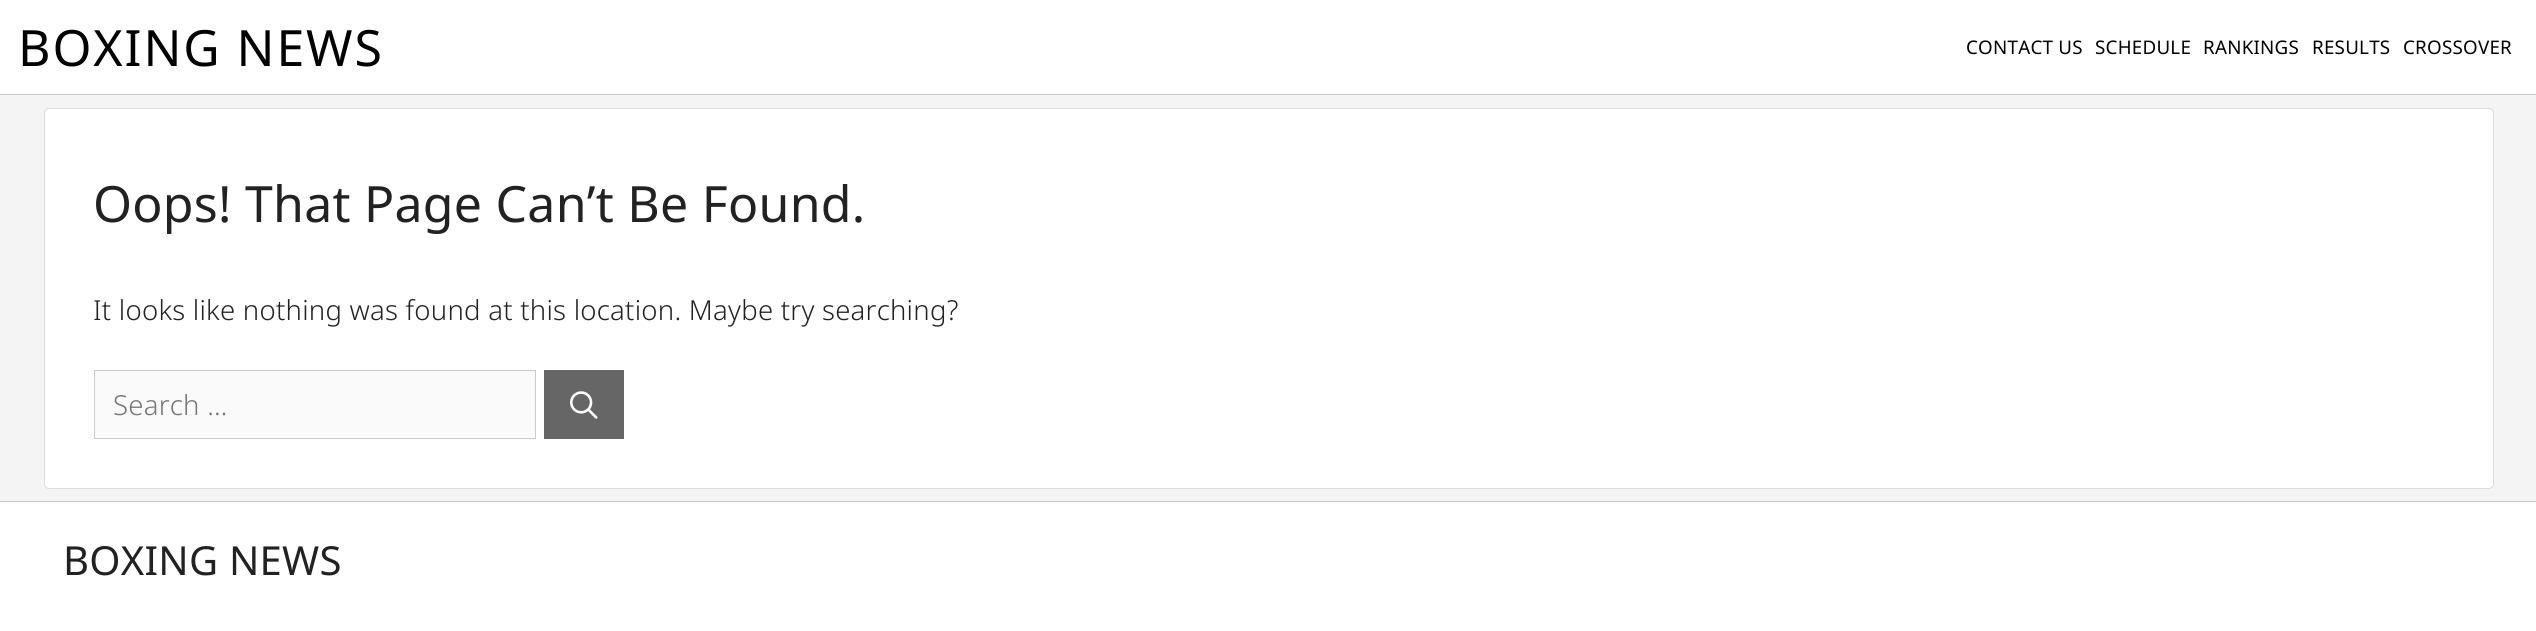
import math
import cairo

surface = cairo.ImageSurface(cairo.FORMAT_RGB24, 2536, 631)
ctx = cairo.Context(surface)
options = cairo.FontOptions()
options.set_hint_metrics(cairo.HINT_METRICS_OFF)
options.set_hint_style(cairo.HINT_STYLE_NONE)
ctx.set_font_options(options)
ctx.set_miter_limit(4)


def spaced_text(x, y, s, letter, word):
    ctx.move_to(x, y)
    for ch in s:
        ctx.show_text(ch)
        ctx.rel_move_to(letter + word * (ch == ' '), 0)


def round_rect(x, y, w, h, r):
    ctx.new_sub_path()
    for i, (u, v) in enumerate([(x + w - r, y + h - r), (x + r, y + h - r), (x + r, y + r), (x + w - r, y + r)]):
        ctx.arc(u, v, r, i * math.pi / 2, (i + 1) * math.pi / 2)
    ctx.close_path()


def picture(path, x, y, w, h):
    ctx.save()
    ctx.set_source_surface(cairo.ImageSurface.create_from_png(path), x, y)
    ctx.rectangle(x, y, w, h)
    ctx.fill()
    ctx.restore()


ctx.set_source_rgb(0.957, 0.957, 0.957)
ctx.paint()
ctx.set_source_rgb(1, 1, 1)
ctx.rectangle(0, 0, 2536, 94)
ctx.fill()
ctx.set_source_rgb(0.8, 0.8, 0.8)
ctx.rectangle(0, 94, 2536, 1)
ctx.fill()
ctx.select_font_face("Noto Sans")
ctx.set_font_size(50)
ctx.set_source_rgb(0, 0, 0)
spaced_text(18, 66, "BOXING NEWS", 1.9, 0)
ctx.set_font_size(18.75)
spaced_text(1966, 54, "CONTACT US", 0.25, 0)
spaced_text(2095, 54, "SCHEDULE", 0.25, 0)
spaced_text(2203, 54, "RANKINGS", 0.25, 0)
spaced_text(2312, 54, "RESULTS", 0.25, 0)
spaced_text(2403, 54, "CROSSOVER", 0.25, 0)
ctx.set_source_rgb(1, 1, 1)
round_rect(44.5, 108.5, 2449, 380, 4.5)
ctx.fill_preserve()
ctx.set_source_rgb(0.867, 0.867, 0.867)
ctx.set_line_width(1)
ctx.stroke()
ctx.set_font_size(50)
ctx.set_source_rgb(0.133, 0.133, 0.133)
spaced_text(93, 222, "Oops! That Page Can’t Be Found.", 0.25, 0)
ctx.select_font_face("Noto Sans Light")
ctx.set_font_size(27.5)
spaced_text(93, 320, "It looks like nothing was found at this location. Maybe try searching?", 0.25, 0)
ctx.set_source_rgb(0.98, 0.98, 0.98)
ctx.rectangle(94.5, 370.5, 441, 68)
ctx.fill_preserve()
ctx.set_source_rgb(0.8, 0.8, 0.8)
ctx.stroke()
ctx.set_source_rgb(0.459, 0.459, 0.459)
spaced_text(113, 415, "Search …", 0.25, 0)
ctx.set_source_rgb(0.4, 0.4, 0.4)
ctx.rectangle(544, 370, 80, 69)
ctx.fill()
picture("img1.png", 570, 391, 28, 28)
ctx.set_source_rgb(1, 1, 1)
ctx.rectangle(0, 502, 2536, 129)
ctx.fill()
ctx.set_source_rgb(0.8, 0.8, 0.8)
ctx.rectangle(0, 501, 2536, 1)
ctx.fill()
ctx.select_font_face("Noto Sans")
ctx.set_font_size(40)
ctx.set_source_rgb(0.133, 0.133, 0.133)
spaced_text(63, 575, "BOXING NEWS", 0.25, 0)
surface.write_to_png("page.png")
